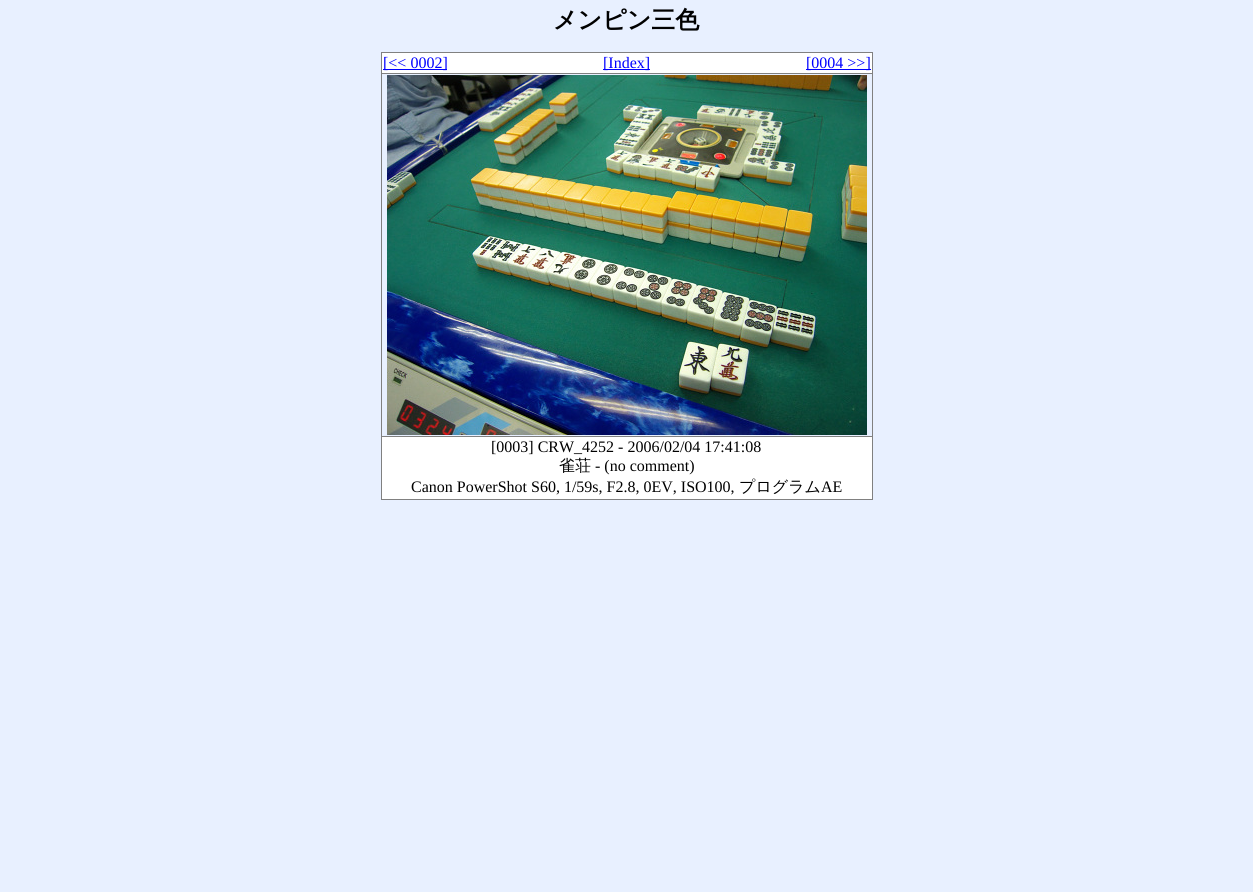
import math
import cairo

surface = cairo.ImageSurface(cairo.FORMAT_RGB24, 1253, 892)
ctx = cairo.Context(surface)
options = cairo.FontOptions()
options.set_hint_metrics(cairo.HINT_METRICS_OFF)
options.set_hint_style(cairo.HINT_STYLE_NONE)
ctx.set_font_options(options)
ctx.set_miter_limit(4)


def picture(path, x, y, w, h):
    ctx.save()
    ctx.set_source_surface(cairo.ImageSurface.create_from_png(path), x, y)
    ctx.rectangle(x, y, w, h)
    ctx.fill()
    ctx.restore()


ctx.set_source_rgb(0.91, 0.941, 1)
ctx.paint()
ctx.select_font_face("WenQuanYi Zen Hei", cairo.FONT_SLANT_NORMAL, cairo.FONT_WEIGHT_BOLD)
ctx.set_font_size(24)
ctx.set_source_rgb(0, 0, 0)
ctx.move_to(553, 28)
ctx.show_text("メンピン三色")
ctx.set_source_rgb(0.502, 0.502, 0.502)
ctx.rectangle(381, 52, 492, 1)
ctx.fill()
ctx.rectangle(872, 52, 1, 448)
ctx.fill()
ctx.rectangle(381, 499, 492, 1)
ctx.fill()
ctx.rectangle(381, 52, 1, 448)
ctx.fill()
ctx.set_source_rgb(1, 1, 1)
ctx.rectangle(382, 53, 490, 20)
ctx.fill()
ctx.set_source_rgb(0, 0, 1)
ctx.rectangle(383, 69, 64, 1)
ctx.fill()
ctx.select_font_face("Liberation Serif")
ctx.set_font_size(16)
ctx.move_to(383, 68)
ctx.show_text("[<< 0002]")
ctx.rectangle(603, 69, 47, 1)
ctx.fill()
ctx.move_to(603, 68)
ctx.show_text("[Index]")
ctx.rectangle(806, 69, 65, 1)
ctx.fill()
ctx.move_to(806, 68)
ctx.show_text("[0004 >>]")
ctx.set_source_rgb(0.502, 0.502, 0.502)
ctx.rectangle(381, 73, 492, 1)
ctx.fill()
picture("img1.png", 387, 75, 480, 360)
ctx.set_source_rgb(1, 1, 1)
ctx.rectangle(382, 437, 490, 62)
ctx.fill()
ctx.set_source_rgb(0.502, 0.502, 0.502)
ctx.rectangle(381, 436, 492, 1)
ctx.fill()
ctx.set_source_rgb(0, 0, 0)
ctx.move_to(491, 452)
ctx.show_text("[0003] CRW_4252 - 2006/02/04 17:41:08")
ctx.select_font_face("WenQuanYi Zen Hei Medium")
ctx.move_to(559, 471)
ctx.show_text("雀荘")
ctx.select_font_face("Liberation Serif")
ctx.move_to(595, 471)
ctx.show_text("- (no comment)")
ctx.move_to(411, 492)
ctx.show_text("Canon PowerShot S60, 1/59s, F2.8, 0EV, ISO100,")
ctx.select_font_face("WenQuanYi Zen Hei Medium")
ctx.move_to(739, 492)
ctx.show_text("プログラム")
ctx.select_font_face("Liberation Serif")
ctx.move_to(821, 492)
ctx.show_text("AE")
surface.write_to_png("page.png")
